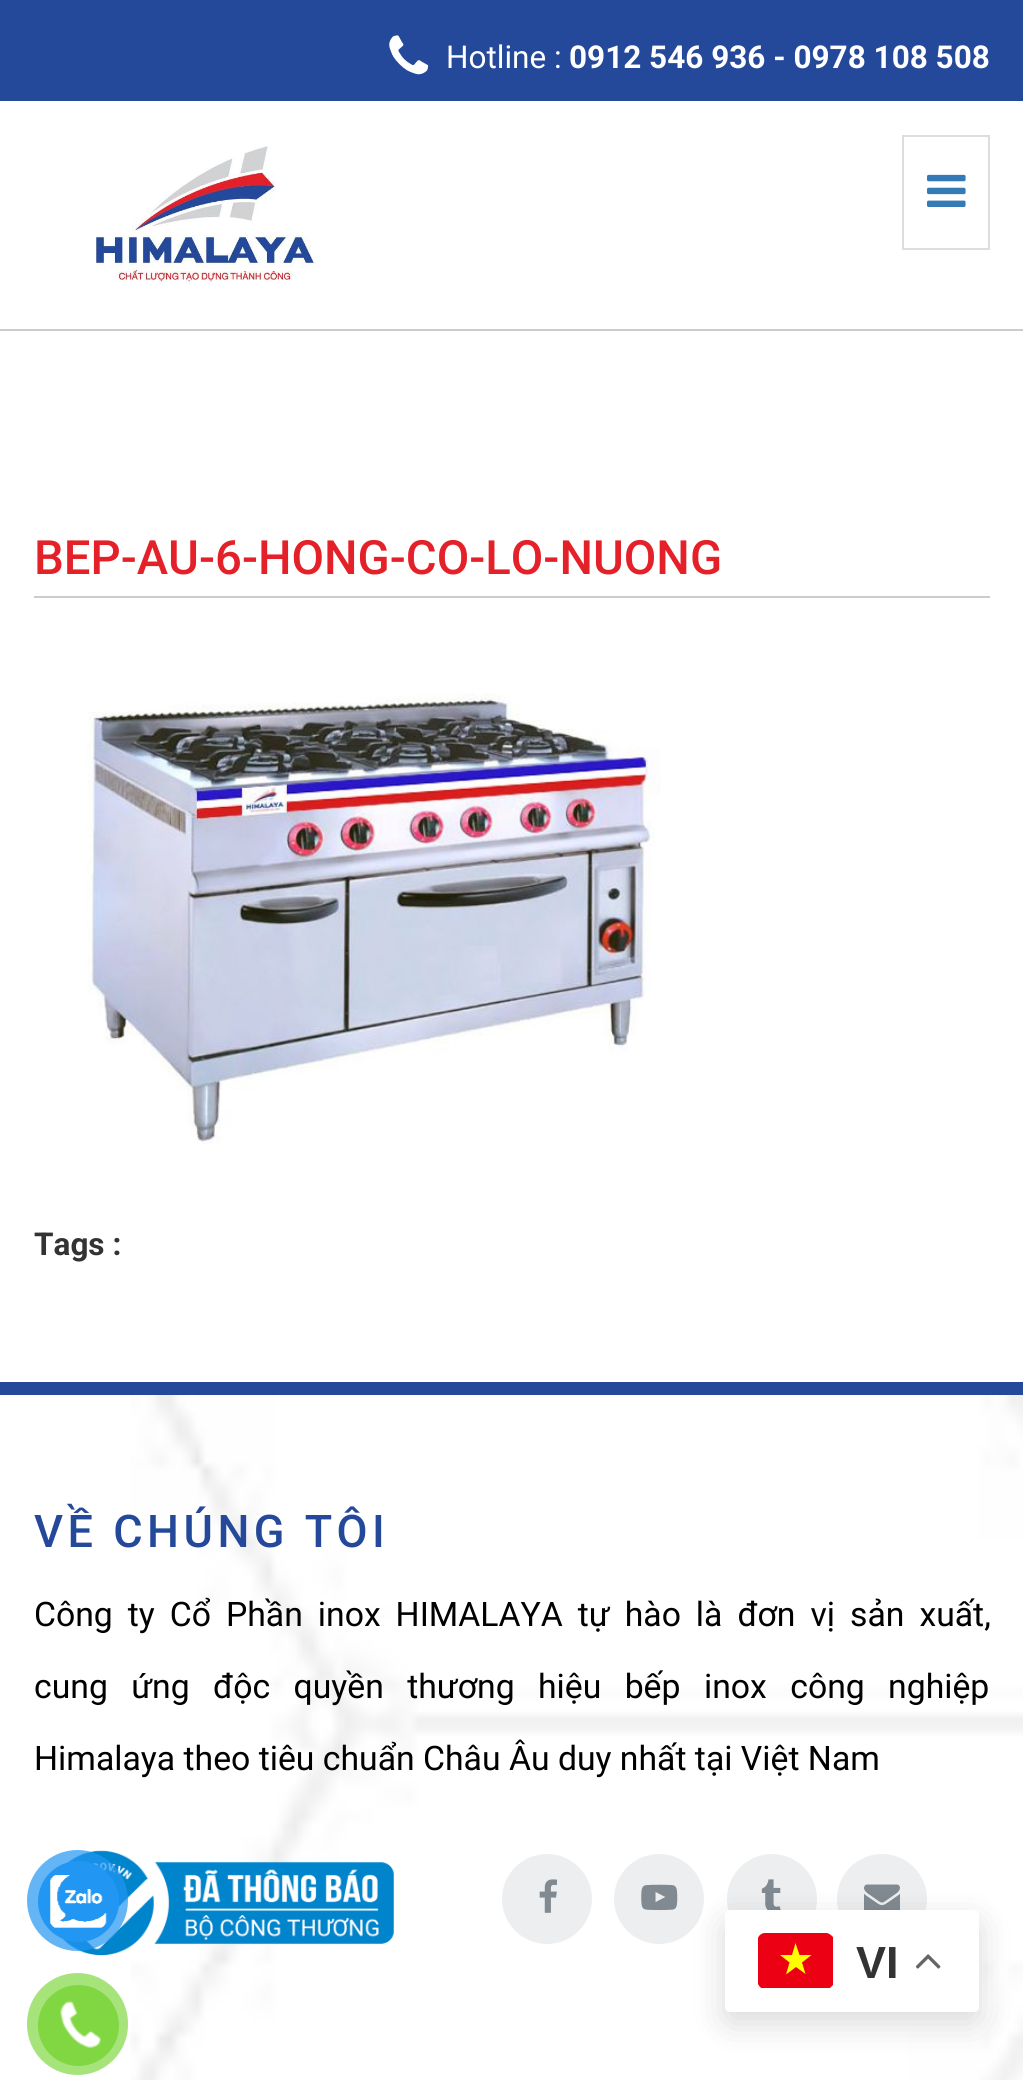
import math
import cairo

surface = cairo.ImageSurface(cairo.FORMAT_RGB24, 1023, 2080)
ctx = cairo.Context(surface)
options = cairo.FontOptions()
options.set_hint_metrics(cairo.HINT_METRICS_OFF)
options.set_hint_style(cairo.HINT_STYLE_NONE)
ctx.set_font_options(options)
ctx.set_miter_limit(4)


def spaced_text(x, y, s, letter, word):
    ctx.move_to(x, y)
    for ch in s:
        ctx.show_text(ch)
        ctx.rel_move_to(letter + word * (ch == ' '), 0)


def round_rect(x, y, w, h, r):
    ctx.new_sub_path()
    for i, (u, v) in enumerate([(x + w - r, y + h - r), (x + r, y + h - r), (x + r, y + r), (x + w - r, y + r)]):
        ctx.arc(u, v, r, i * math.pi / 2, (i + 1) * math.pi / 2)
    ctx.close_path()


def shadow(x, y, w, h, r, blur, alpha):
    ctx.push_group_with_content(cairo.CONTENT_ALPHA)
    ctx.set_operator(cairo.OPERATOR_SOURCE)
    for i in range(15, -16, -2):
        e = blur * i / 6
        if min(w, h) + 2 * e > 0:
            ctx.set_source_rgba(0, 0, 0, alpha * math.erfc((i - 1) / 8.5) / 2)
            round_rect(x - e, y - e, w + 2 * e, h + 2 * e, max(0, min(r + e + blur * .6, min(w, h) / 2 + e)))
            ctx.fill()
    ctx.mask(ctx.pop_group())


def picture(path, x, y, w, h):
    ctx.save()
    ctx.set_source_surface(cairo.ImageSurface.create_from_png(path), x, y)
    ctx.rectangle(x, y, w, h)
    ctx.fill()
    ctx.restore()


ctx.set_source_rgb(1, 1, 1)
ctx.paint()
ctx.set_source_rgb(0.145, 0.286, 0.604)
ctx.rectangle(0, 0, 1023, 101)
ctx.fill()
picture("img1.png", 389, 35, 40, 40)
ctx.select_font_face("Roboto")
ctx.set_font_size(31.5)
ctx.set_source_rgb(1, 1, 1)
ctx.move_to(446, 68)
ctx.show_text("Hotline :")
ctx.select_font_face("Roboto", cairo.FONT_SLANT_NORMAL, cairo.FONT_WEIGHT_BOLD)
ctx.move_to(569, 68)
ctx.show_text("0912 546 936 - 0978 108 508")
ctx.set_source_rgb(0.8, 0.8, 0.8)
ctx.rectangle(0, 329, 1023, 2)
ctx.fill()
picture("img2.png", 96, 146, 224, 139)
ctx.rectangle(903, 136, 86, 113)
ctx.set_source_rgb(0.867, 0.867, 0.867)
ctx.stroke()
picture("img3.png", 927, 174, 39, 33)
ctx.set_source_rgb(0.8, 0.8, 0.8)
ctx.rectangle(34, 596, 956, 2)
ctx.fill()
ctx.select_font_face("Roboto Medium")
ctx.set_font_size(47.25)
ctx.set_source_rgb(0.894, 0.129, 0.157)
ctx.move_to(34, 574)
ctx.show_text("BEP-AU-6-HONG-CO-LO-NUONG")
picture("img4.png", 87, 693, 574, 451)
ctx.select_font_face("Roboto", cairo.FONT_SLANT_NORMAL, cairo.FONT_WEIGHT_BOLD)
ctx.set_font_size(31.5)
ctx.set_source_rgb(0.2, 0.2, 0.2)
ctx.move_to(34, 1255)
ctx.show_text("Tags :")
picture("img5.png", 130, 1395, 893, 685)
ctx.set_source_rgb(0.145, 0.286, 0.604)
ctx.rectangle(0, 1382, 1023, 13)
ctx.fill()
ctx.select_font_face("Roboto Medium")
ctx.set_font_size(45)
spaced_text(34, 1547, "VỀ CHÚNG TÔI", 4.5, 0)
ctx.select_font_face("Roboto")
ctx.set_font_size(33.75)
ctx.set_source_rgb(0, 0, 0)
spaced_text(34, 1626, "Công ty Cổ Phần inox HIMALAYA tự hào là đơn vị sản xuất,", 0, 6.6)
spaced_text(34, 1698, "cung ứng độc quyền thương hiệu bếp", 0, 15)
spaced_text(704, 1698, "inox công nghiệp", 0, 15)
ctx.move_to(34, 1770)
ctx.show_text("Himalaya theo tiêu chuẩn Châu Âu duy nhất tại Việt Nam")
picture("img6.png", 47, 1850, 347, 106)
ctx.set_source_rgb(0.925, 0.933, 0.937)
ctx.arc(547, 1899, 45, 0, 2 * math.pi)
ctx.fill()
picture("img7.png", 539, 1879, 18, 34)
ctx.arc(659, 1899, 45, 0, 2 * math.pi)
ctx.fill()
picture("img8.png", 641, 1884, 37, 27)
ctx.arc(772, 1899, 45, 0, 2 * math.pi)
ctx.fill()
picture("img9.png", 761, 1879, 20, 31)
ctx.arc(882, 1899, 45, 0, 2 * math.pi)
ctx.fill()
picture("img10.png", 864, 1884, 36, 26)
ctx.set_source_rgba(0.129, 0.588, 0.953, 0.7)
ctx.arc(77.5, 1900.5, 50.5, 0, 2 * math.pi)
ctx.fill()
ctx.set_source_rgb(0.129, 0.588, 0.953)
ctx.arc(78.5, 1901.5, 40.5, 0, 2 * math.pi)
ctx.fill()
picture("img11.png", 50, 1875, 57, 53)
ctx.set_source_rgb(0.655, 0.89, 0.482)
round_rect(27, 1973, 101, 102, 50.5)
ctx.fill()
ctx.set_source_rgb(0.506, 0.843, 0.259)
ctx.arc(78.5, 2025.5, 40.5, 0, 2 * math.pi)
ctx.fill()
picture("img12.png", 60, 2000, 41, 48)
ctx.set_source_rgb(0, 0, 0)
shadow(725, 1922, 254, 101, 5, 17, 0.15)
ctx.set_source_rgb(1, 1, 1)
round_rect(725, 1910, 254, 102, 5)
ctx.fill()
ctx.set_source_rgb(0.925, 0, 0.082)
ctx.new_path()
ctx.move_to(765, 1933)
ctx.line_to(826, 1933)
ctx.curve_to(829, 1933, 831, 1935, 833, 1937)
ctx.line_to(833, 1985)
ctx.curve_to(832, 1986, 831, 1987, 830, 1988)
ctx.line_to(761, 1988)
ctx.curve_to(760, 1987, 759, 1986, 758, 1984)
ctx.line_to(758, 1938)
ctx.curve_to(759, 1935, 762, 1933, 765, 1933)
ctx.close_path()
ctx.fill()
ctx.set_source_rgb(1, 1, 0)
ctx.set_fill_rule(cairo.FILL_RULE_EVEN_ODD)
ctx.new_path()
ctx.move_to(805.5, 1974)
ctx.line_to(796, 1967)
ctx.line_to(786, 1974.5)
ctx.line_to(789.5, 1962.5)
ctx.line_to(780, 1955)
ctx.line_to(792, 1955)
ctx.line_to(795.5, 1943)
ctx.line_to(799.5, 1955)
ctx.line_to(811.5, 1955)
ctx.line_to(802, 1962.5)
ctx.close_path()
ctx.fill()
ctx.select_font_face("Liberation Sans", cairo.FONT_SLANT_NORMAL, cairo.FONT_WEIGHT_BOLD)
ctx.set_font_size(45)
ctx.set_source_rgb(0.2, 0.2, 0.2)
ctx.move_to(856, 1978)
ctx.show_text("VI")
picture("img13.png", 916, 1954, 25, 15)
surface.write_to_png("page.png")
